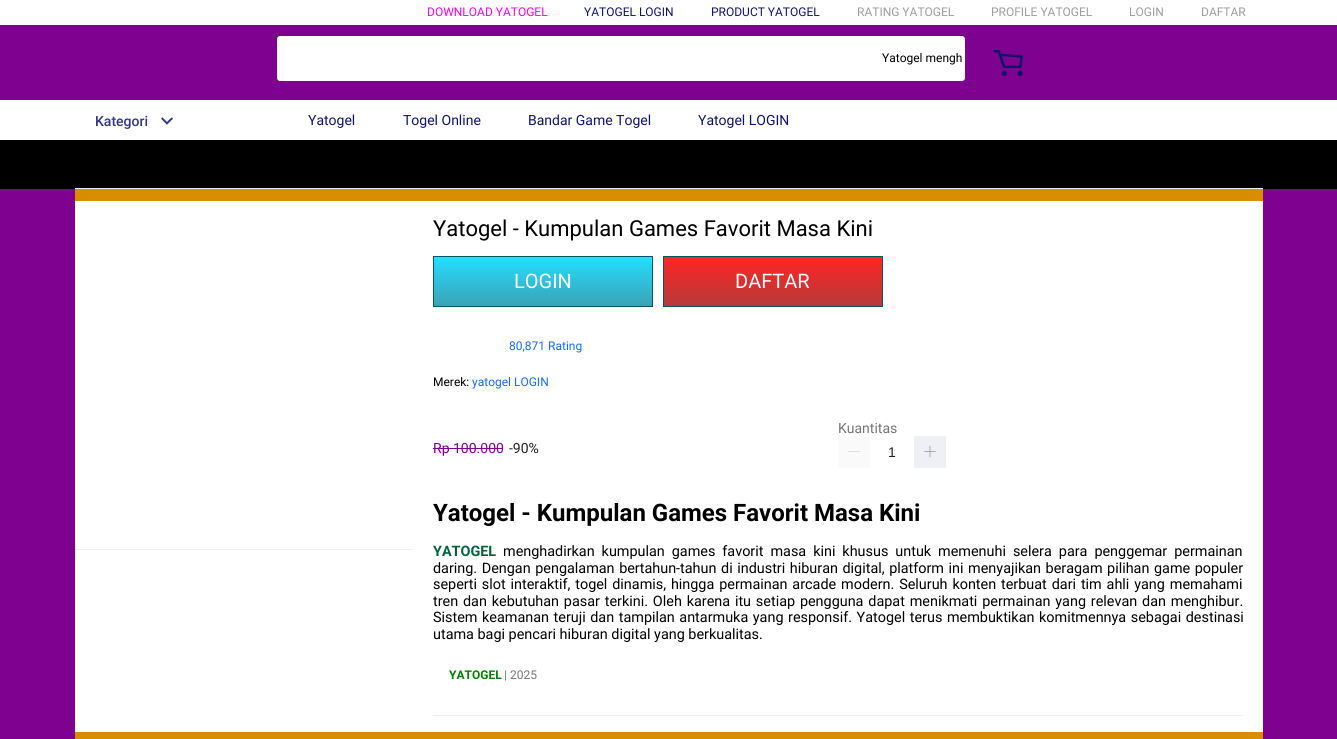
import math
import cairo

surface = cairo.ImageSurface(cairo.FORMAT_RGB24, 1337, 739)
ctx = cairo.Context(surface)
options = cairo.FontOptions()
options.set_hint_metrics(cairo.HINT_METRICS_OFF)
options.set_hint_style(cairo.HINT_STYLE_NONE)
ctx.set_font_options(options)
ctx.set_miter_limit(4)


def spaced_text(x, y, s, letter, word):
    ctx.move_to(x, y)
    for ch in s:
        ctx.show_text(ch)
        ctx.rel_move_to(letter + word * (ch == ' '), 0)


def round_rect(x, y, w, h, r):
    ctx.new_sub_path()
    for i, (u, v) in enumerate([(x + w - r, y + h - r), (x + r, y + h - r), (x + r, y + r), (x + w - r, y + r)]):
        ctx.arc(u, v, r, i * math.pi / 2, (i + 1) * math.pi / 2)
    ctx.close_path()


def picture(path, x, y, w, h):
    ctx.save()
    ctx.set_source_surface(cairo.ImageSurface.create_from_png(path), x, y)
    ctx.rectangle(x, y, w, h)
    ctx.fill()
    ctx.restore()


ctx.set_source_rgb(0.494, 0.004, 0.561)
ctx.paint()
ctx.set_source_rgb(1, 1, 1)
ctx.rectangle(0, 0, 1337, 140)
ctx.fill()
ctx.select_font_face("Roboto")
ctx.set_font_size(12)
ctx.set_source_rgb(1, 0, 1)
ctx.move_to(427, 16)
ctx.show_text("DOWNLOAD YATOGEL")
ctx.set_source_rgb(0.059, 0.075, 0.427)
ctx.move_to(584, 16)
ctx.show_text("YATOGEL LOGIN")
ctx.move_to(711, 16)
ctx.show_text("PRODUCT YATOGEL")
ctx.set_source_rgb(0.62, 0.62, 0.62)
ctx.move_to(857, 16)
ctx.show_text("RATING YATOGEL")
ctx.move_to(991, 16)
ctx.show_text("PROFILE YATOGEL")
ctx.move_to(1129, 16)
ctx.show_text("LOGIN")
ctx.move_to(1201, 16)
ctx.show_text("DAFTAR")
ctx.set_source_rgb(0.494, 0.004, 0.561)
ctx.rectangle(0, 25, 1337, 75)
ctx.fill()
ctx.set_source_rgb(1, 1, 1)
round_rect(277, 36, 688, 45, 3)
ctx.fill()
ctx.set_source_rgb(0, 0, 0)
ctx.move_to(882, 62)
ctx.show_text("Yatogel mengh")
picture("img1.png", 994, 50, 30, 26)
ctx.select_font_face("Roboto Medium")
ctx.set_font_size(14)
ctx.set_source_rgb(0.2, 0.212, 0.514)
ctx.move_to(95, 126)
ctx.show_text("Kategori")
picture("img2.png", 161, 117, 12, 8)
ctx.select_font_face("Roboto")
ctx.set_source_rgb(0.059, 0.075, 0.427)
ctx.move_to(308, 125)
ctx.show_text("Yatogel")
ctx.move_to(403, 125)
ctx.show_text("Togel Online")
ctx.move_to(528, 125)
ctx.show_text("Bandar Game Togel")
ctx.move_to(698, 125)
ctx.show_text("Yatogel LOGIN")
ctx.set_source_rgb(0, 0, 0)
ctx.rectangle(0, 140, 1337, 49)
ctx.fill()
ctx.set_source_rgb(0.937, 0.941, 0.961)
ctx.rectangle(75, 188, 1188, 1)
ctx.fill()
ctx.set_source_rgb(0.847, 0.549, 0)
ctx.rectangle(75, 189, 1188, 550)
ctx.fill()
ctx.set_source_rgb(1, 1, 1)
ctx.rectangle(75, 201, 1188, 531)
ctx.fill()
ctx.set_source_rgb(0.937, 0.941, 0.961)
ctx.rectangle(75, 549, 338, 1)
ctx.fill()
ctx.set_font_size(22)
ctx.set_source_rgb(0, 0, 0)
ctx.move_to(433, 236)
ctx.show_text("Yatogel - Kumpulan Games Favorit Masa Kini")
gradient = cairo.LinearGradient(543, 257, 543, 306)
gradient.add_color_stop_rgba(0, 0.141, 0.871, 1, 1)
gradient.add_color_stop_rgba(1, 0.227, 0.639, 0.714, 1)
ctx.set_source(gradient)
ctx.rectangle(434, 257, 218, 49)
ctx.fill()
ctx.rectangle(433.5, 256.5, 219, 50)
ctx.set_source_rgb(0, 0.337, 0.38)
ctx.set_line_width(1)
ctx.stroke()
ctx.set_font_size(20)
ctx.set_source_rgb(1, 1, 1)
ctx.move_to(514, 288)
ctx.show_text("LOGIN")
gradient = cairo.LinearGradient(773, 257, 773, 306)
gradient.add_color_stop_rgba(0, 1, 0.141, 0.141, 1)
gradient.add_color_stop_rgba(1, 0.714, 0.227, 0.227, 1)
ctx.set_source(gradient)
ctx.rectangle(664, 257, 218, 49)
ctx.fill()
ctx.rectangle(663.5, 256.5, 219, 50)
ctx.set_source_rgb(0, 0.337, 0.38)
ctx.stroke()
ctx.set_source_rgb(1, 1, 1)
ctx.move_to(735, 288)
ctx.show_text("DAFTAR")
ctx.set_font_size(12)
ctx.set_source_rgb(0.075, 0.424, 1)
ctx.move_to(509, 350)
ctx.show_text("80,871 Rating")
ctx.set_source_rgb(0, 0, 0)
ctx.move_to(433, 386)
ctx.show_text("Merek:")
ctx.set_source_rgb(0.075, 0.424, 1)
ctx.move_to(472, 386)
ctx.show_text("yatogel LOGIN")
ctx.set_font_size(14)
ctx.set_source_rgb(0.494, 0.004, 0.561)
ctx.move_to(433, 453)
ctx.show_text("Rp 100.000")
ctx.rectangle(433, 448, 70, 1)
ctx.fill()
ctx.set_source_rgb(0.129, 0.129, 0.129)
ctx.move_to(509, 453)
ctx.show_text("-90%")
ctx.set_source_rgb(0.459, 0.459, 0.459)
ctx.move_to(838, 433)
ctx.show_text("Kuantitas")
ctx.set_source_rgb(0.98, 0.98, 0.98)
ctx.rectangle(838, 436, 32, 32)
ctx.fill()
picture("img3.png", 848, 451, 12, 1)
ctx.set_source_rgb(0.937, 0.941, 0.961)
ctx.rectangle(914, 436, 32, 32)
ctx.fill()
picture("img4.png", 924, 445, 12, 13)
ctx.select_font_face("Liberation Sans")
ctx.set_source_rgb(0.129, 0.129, 0.129)
ctx.move_to(888, 457)
ctx.show_text("1")
ctx.select_font_face("Roboto", cairo.FONT_SLANT_NORMAL, cairo.FONT_WEIGHT_BOLD)
ctx.set_font_size(24)
ctx.set_source_rgb(0, 0, 0)
ctx.move_to(433, 521)
ctx.show_text("Yatogel - Kumpulan Games Favorit Masa Kini")
ctx.set_font_size(14.4)
ctx.set_source_rgb(0, 0.388, 0.239)
ctx.move_to(433, 556)
ctx.show_text("YATOGEL")
ctx.select_font_face("Roboto")
ctx.set_source_rgb(0, 0, 0)
spaced_text(503, 556, "menghadirkan kumpulan games favorit masa kini khusus untuk memenuhi selera para penggemar permainan", 0, 3.4)
spaced_text(433, 573, "daring. Dengan pengalaman bertahun-tahun di industri hiburan digital, platform ini menyajikan beragam pilihan game populer", 0, 1)
spaced_text(433, 589, "seperti slot interaktif, togel dinamis, hingga permainan arcade modern. Seluruh konten terbuat dari tim ahli yang memahami", 0, 1.3)
spaced_text(433, 606, "tren dan kebutuhan pasar terkini. Oleh karena itu setiap pengguna dapat menikmati permainan yang relevan dan menghibur.", 0, 1.25)
spaced_text(433, 622, "Sistem keamanan teruji dan tampilan antarmuka yang responsif. Yatogel terus membuktikan komitmennya sebagai destinasi", 0, 1)
ctx.move_to(433, 639)
ctx.show_text("utama bagi pencari hiburan digital yang berkualitas.")
ctx.select_font_face("Roboto", cairo.FONT_SLANT_NORMAL, cairo.FONT_WEIGHT_BOLD)
ctx.set_font_size(12)
ctx.set_source_rgb(0, 0.502, 0)
ctx.move_to(449, 679)
ctx.show_text("YATOGEL")
ctx.select_font_face("Roboto")
ctx.set_source_rgb(0.459, 0.459, 0.459)
ctx.move_to(504, 679)
ctx.show_text("| 2025")
ctx.set_source_rgb(0.937, 0.941, 0.961)
ctx.rectangle(433, 715, 810, 1)
ctx.fill()
surface.write_to_png("page.png")
